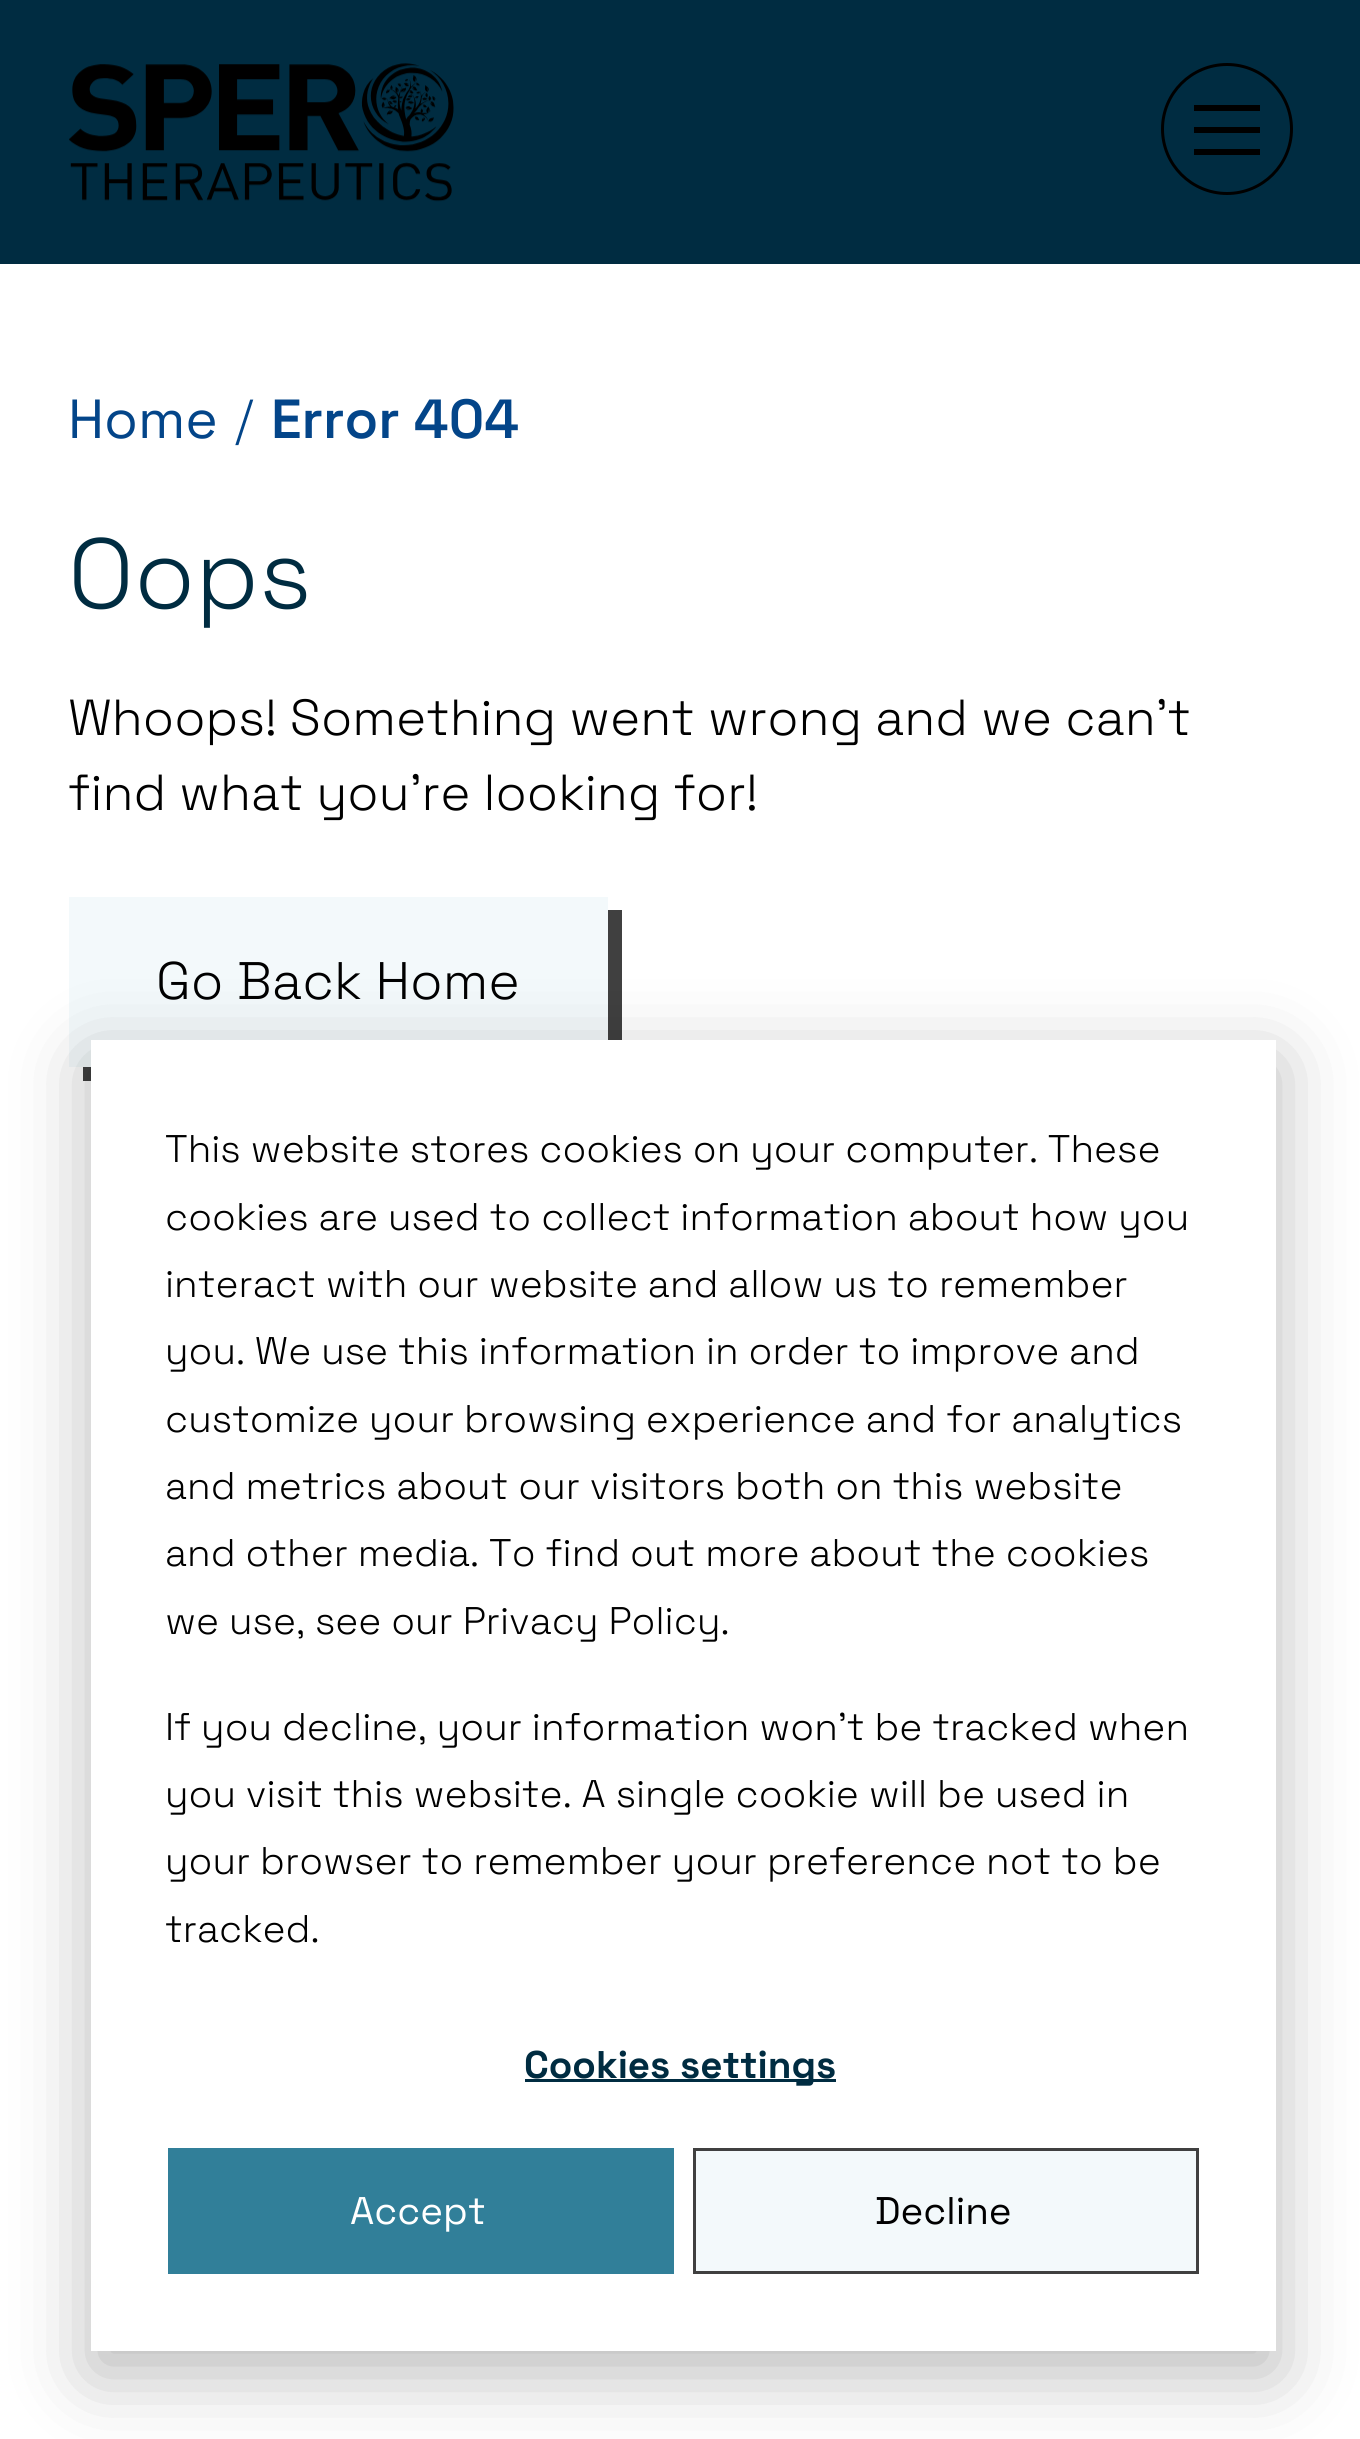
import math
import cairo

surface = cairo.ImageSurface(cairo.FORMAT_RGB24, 1360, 2439)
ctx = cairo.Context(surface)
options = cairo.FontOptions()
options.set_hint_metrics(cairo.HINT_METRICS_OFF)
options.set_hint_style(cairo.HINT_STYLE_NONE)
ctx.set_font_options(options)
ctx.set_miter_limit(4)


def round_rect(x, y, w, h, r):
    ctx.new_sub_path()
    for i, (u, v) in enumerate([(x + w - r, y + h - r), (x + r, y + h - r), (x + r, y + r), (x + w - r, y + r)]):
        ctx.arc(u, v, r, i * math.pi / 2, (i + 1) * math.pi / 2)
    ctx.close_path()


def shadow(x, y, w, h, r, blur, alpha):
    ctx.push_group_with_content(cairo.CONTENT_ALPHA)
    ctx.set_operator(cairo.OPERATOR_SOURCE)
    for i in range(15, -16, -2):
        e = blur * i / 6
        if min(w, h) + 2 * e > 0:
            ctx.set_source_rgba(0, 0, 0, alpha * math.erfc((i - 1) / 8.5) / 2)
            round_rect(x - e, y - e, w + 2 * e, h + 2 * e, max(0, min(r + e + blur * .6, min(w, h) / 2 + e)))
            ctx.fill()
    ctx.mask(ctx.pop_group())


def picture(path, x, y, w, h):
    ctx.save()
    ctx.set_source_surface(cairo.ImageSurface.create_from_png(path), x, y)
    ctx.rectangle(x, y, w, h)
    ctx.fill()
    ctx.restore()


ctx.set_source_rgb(1, 1, 1)
ctx.paint()
ctx.set_source_rgb(0, 0.173, 0.255)
ctx.rectangle(0, 0, 1360, 264)
ctx.fill()
picture("img1.png", 69, 63, 385, 139)
ctx.arc(1227, 129, 64.5, 0, 2 * math.pi)
ctx.set_source_rgb(0, 0, 0)
ctx.set_line_width(3)
ctx.stroke()
ctx.rectangle(1194, 105, 66, 6)
ctx.fill()
ctx.rectangle(1194, 127, 66, 6)
ctx.fill()
ctx.rectangle(1194, 149, 66, 6)
ctx.fill()
ctx.select_font_face("Space Grotesk")
ctx.set_font_size(55)
ctx.set_source_rgb(0.012, 0.271, 0.537)
ctx.move_to(68, 438)
ctx.show_text("Home")
ctx.select_font_face("Space Grotesk Light")
ctx.set_font_size(50.6)
ctx.move_to(235, 435)
ctx.show_text("/")
ctx.select_font_face("Space Grotesk SemiBold")
ctx.set_font_size(55)
ctx.move_to(271, 438)
ctx.show_text("Error 404")
ctx.select_font_face("Space Grotesk Light")
ctx.set_font_size(99)
ctx.set_source_rgb(0, 0.173, 0.255)
ctx.move_to(68, 608)
ctx.show_text("Oops")
ctx.set_font_size(50.6)
ctx.set_source_rgb(0, 0, 0)
ctx.move_to(68, 735)
ctx.show_text("Whoops! Something went wrong and we can’t")
ctx.move_to(68, 810)
ctx.show_text("find what you’re looking for!")
ctx.set_source_rgb(0.251, 0.251, 0.251)
ctx.new_path()
ctx.move_to(83, 1067)
ctx.line_to(83, 1081)
ctx.line_to(622, 1081)
ctx.line_to(622, 910)
ctx.line_to(608, 910)
ctx.line_to(608, 1067)
ctx.close_path()
ctx.fill()
ctx.set_source_rgb(0.953, 0.976, 0.984)
ctx.rectangle(69, 897, 539, 170)
ctx.fill()
ctx.set_font_size(52.75)
ctx.set_source_rgb(0, 0, 0)
ctx.move_to(156, 999)
ctx.show_text("Go Back Home")
ctx.set_source_rgb(0, 0, 0)
shadow(91, 1062, 1185, 1311, 0, 38.5, 0.28)
ctx.set_source_rgb(1, 1, 1)
ctx.rectangle(91, 1040, 1185, 1311)
ctx.fill()
ctx.set_font_size(38.5)
ctx.set_source_rgb(0, 0, 0)
ctx.move_to(165, 1162)
ctx.show_text("This website stores cookies on your computer. These")
ctx.move_to(165, 1230)
ctx.show_text("cookies are used to collect information about how you")
ctx.move_to(165, 1297)
ctx.show_text("interact with our website and allow us to remember")
ctx.move_to(165, 1364)
ctx.show_text("you. We use this information in order to improve and")
ctx.move_to(165, 1432)
ctx.show_text("customize your browsing experience and for analytics")
ctx.move_to(165, 1499)
ctx.show_text("and metrics about our visitors both on this website")
ctx.move_to(165, 1566)
ctx.show_text("and other media. To find out more about the cookies")
ctx.move_to(165, 1634)
ctx.show_text("we use, see our Privacy Policy.")
ctx.move_to(165, 1740)
ctx.show_text("If you decline, your information won’t be tracked when")
ctx.move_to(165, 1807)
ctx.show_text("you visit this website. A single cookie will be used in")
ctx.move_to(165, 1874)
ctx.show_text("your browser to remember your preference not to be")
ctx.move_to(165, 1942)
ctx.show_text("tracked.")
ctx.set_source_rgb(0, 0.173, 0.255)
ctx.rectangle(525, 2079, 311, 3)
ctx.fill()
ctx.select_font_face("Space Grotesk", cairo.FONT_SLANT_NORMAL, cairo.FONT_WEIGHT_BOLD)
ctx.move_to(524, 2078)
ctx.show_text("Cookies settings")
ctx.set_source_rgb(0.192, 0.498, 0.6)
ctx.rectangle(168, 2148, 506, 126)
ctx.fill()
ctx.select_font_face("Space Grotesk")
ctx.set_source_rgb(1, 1, 1)
ctx.move_to(350, 2224)
ctx.show_text("Accept")
ctx.set_source_rgb(0.953, 0.976, 0.984)
ctx.rectangle(694.5, 2149.5, 503, 123)
ctx.fill_preserve()
ctx.set_source_rgb(0.251, 0.251, 0.251)
ctx.stroke()
ctx.set_source_rgb(0, 0, 0)
ctx.move_to(875, 2224)
ctx.show_text("Decline")
surface.write_to_png("page.png")
